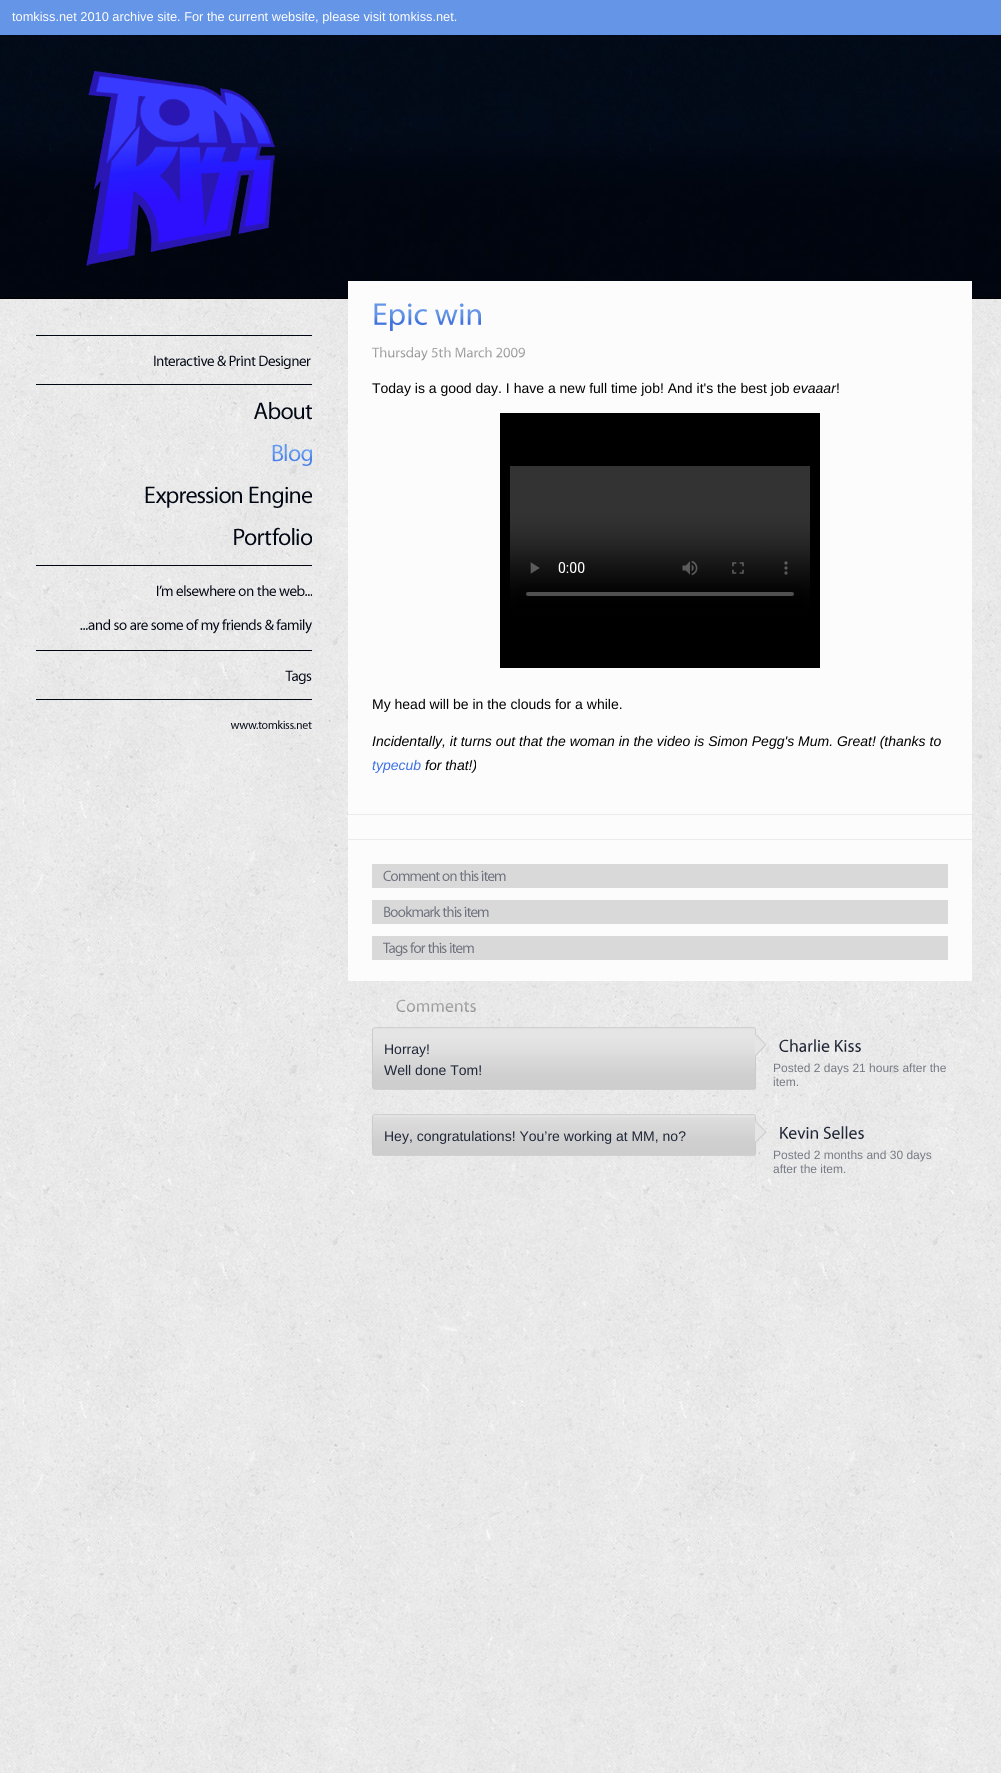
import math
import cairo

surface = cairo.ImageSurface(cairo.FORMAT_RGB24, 1001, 1773)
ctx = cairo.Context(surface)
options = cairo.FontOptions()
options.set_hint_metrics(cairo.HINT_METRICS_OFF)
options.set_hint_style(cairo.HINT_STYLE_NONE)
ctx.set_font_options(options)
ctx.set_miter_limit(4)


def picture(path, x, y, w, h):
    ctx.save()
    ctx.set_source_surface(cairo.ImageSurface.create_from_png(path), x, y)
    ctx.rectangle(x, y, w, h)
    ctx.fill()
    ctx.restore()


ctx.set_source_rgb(1, 1, 1)
ctx.paint()
picture("img1.png", 0, 299, 1001, 1474)
ctx.set_source_rgb(0.396, 0.584, 0.906)
ctx.rectangle(0, 0, 1001, 34)
ctx.fill()
ctx.set_source_rgb(0.388, 0.576, 0.906)
ctx.rectangle(0, 34, 1001, 1)
ctx.fill()
ctx.select_font_face("Liberation Sans")
ctx.set_font_size(12.8)
ctx.set_source_rgb(1, 1, 1)
ctx.move_to(12, 21)
ctx.show_text("tomkiss.net 2010 archive site. For the current website, please visit tomkiss.net.")
picture("img2.png", 0, 35, 1001, 264)
picture("img3.png", 86, 70, 189, 196)
ctx.set_source_rgb(0.004, 0.027, 0.075)
ctx.rectangle(36, 335, 276, 1)
ctx.fill()
picture("img4.png", 154, 355, 157, 14)
ctx.rectangle(36, 384, 276, 1)
ctx.fill()
picture("img5.png", 254, 402, 58, 18)
picture("img6.png", 272, 444, 40, 22)
picture("img7.png", 145, 486, 167, 22)
picture("img8.png", 234, 527, 78, 19)
ctx.rectangle(36, 565, 276, 1)
ctx.fill()
picture("img9.png", 157, 585, 155, 11)
picture("img10.png", 80, 619, 232, 15)
ctx.rectangle(36, 650, 276, 1)
ctx.fill()
picture("img11.png", 285, 670, 27, 14)
ctx.rectangle(36, 699, 276, 1)
ctx.fill()
picture("img12.png", 230, 720, 82, 9)
ctx.set_source_rgb(0.988, 0.988, 0.988)
ctx.rectangle(348, 281, 624, 700)
ctx.fill()
picture("img13.png", 374, 303, 107, 28)
picture("img14.png", 372, 347, 153, 14)
ctx.set_font_size(14)
ctx.set_source_rgb(0, 0, 0)
ctx.move_to(372, 393)
ctx.show_text("Today is a good day. I have a new full time job! And it's the best job")
ctx.select_font_face("Liberation Sans", cairo.FONT_SLANT_ITALIC)
ctx.move_to(793, 393)
ctx.show_text("evaaar")
ctx.select_font_face("Liberation Sans")
ctx.move_to(836, 393)
ctx.show_text("!")
picture("img15.png", 500, 413, 320, 255)
ctx.move_to(372, 709)
ctx.show_text("My head will be in the clouds for a while.")
ctx.select_font_face("Liberation Sans", cairo.FONT_SLANT_ITALIC)
ctx.move_to(372, 746)
ctx.show_text("Incidentally, it turns out that the woman in the video is Simon Pegg's Mum. Great! (thanks to")
ctx.set_source_rgb(0.231, 0.439, 0.902)
ctx.move_to(372, 770)
ctx.show_text("typecub")
ctx.set_source_rgb(0, 0, 0)
ctx.move_to(425, 770)
ctx.show_text("for that!)")
ctx.set_source_rgb(0.918, 0.918, 0.918)
ctx.rectangle(348, 814, 624, 1)
ctx.fill()
ctx.rectangle(348, 839, 624, 1)
ctx.fill()
ctx.set_source_rgb(0.851, 0.851, 0.851)
ctx.rectangle(372, 864, 576, 24)
ctx.fill()
picture("img16.png", 383, 870, 123, 11)
ctx.rectangle(372, 900, 576, 24)
ctx.fill()
picture("img17.png", 384, 906, 105, 11)
ctx.rectangle(372, 936, 576, 24)
ctx.fill()
picture("img18.png", 383, 942, 91, 14)
picture("img19.png", 396, 999, 80, 13)
picture("img20.png", 372, 1027, 384, 3)
picture("img21.png", 372, 1030, 384, 60)
ctx.select_font_face("Liberation Sans")
ctx.set_source_rgb(0.122, 0.153, 0.22)
ctx.move_to(384, 1054)
ctx.show_text("Horray!")
ctx.move_to(384, 1075)
ctx.show_text("Well done Tom!")
picture("img22.png", 755, 1034, 12, 62)
picture("img23.png", 779, 1039, 82, 13)
ctx.set_font_size(12)
ctx.set_source_rgb(0.463, 0.478, 0.518)
ctx.move_to(773, 1072)
ctx.show_text("Posted 2 days 21 hours after the")
ctx.move_to(773, 1086)
ctx.show_text("item.")
picture("img24.png", 372, 1114, 384, 3)
picture("img25.png", 372, 1117, 384, 39)
ctx.set_font_size(14)
ctx.set_source_rgb(0.122, 0.153, 0.22)
ctx.move_to(384, 1141)
ctx.show_text("Hey, congratulations! You’re working at MM, no?")
picture("img26.png", 755, 1121, 12, 62)
picture("img27.png", 780, 1126, 84, 13)
ctx.set_font_size(12)
ctx.set_source_rgb(0.463, 0.478, 0.518)
ctx.move_to(773, 1159)
ctx.show_text("Posted 2 months and 30 days")
ctx.move_to(773, 1173)
ctx.show_text("after the item.")
surface.write_to_png("page.png")
